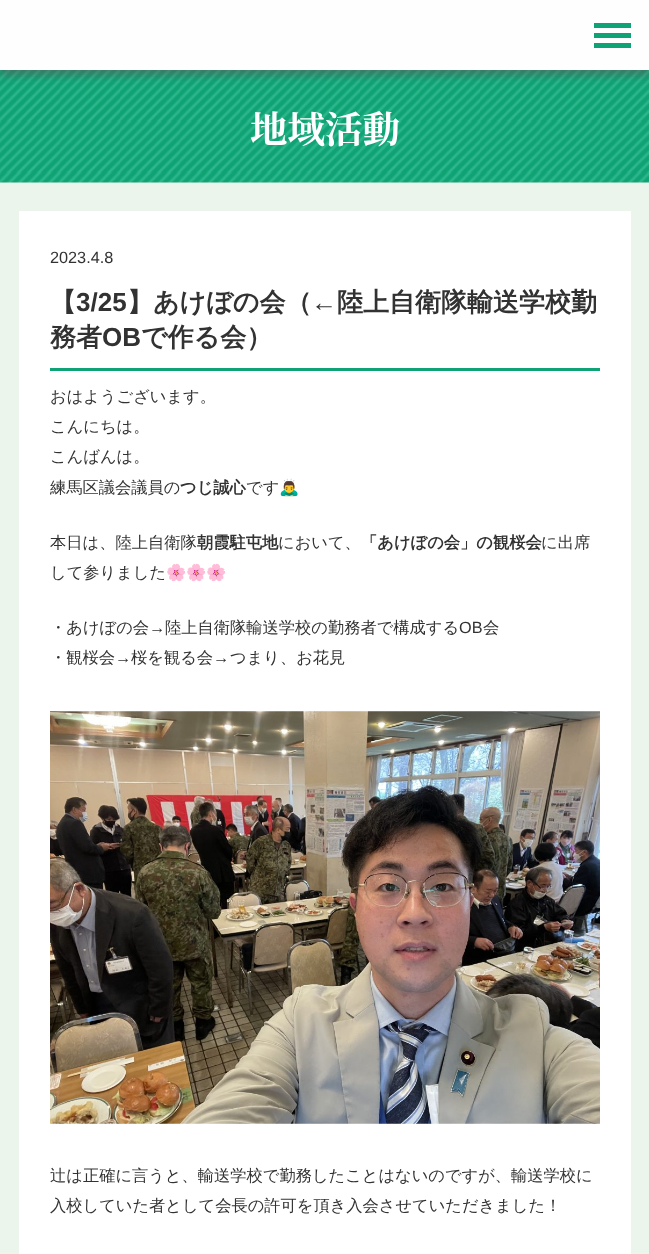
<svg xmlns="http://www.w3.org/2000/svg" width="649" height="1254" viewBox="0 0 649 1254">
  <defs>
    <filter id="blur1" x="-50%" y="-200%" width="200%" height="500%"><feGaussianBlur stdDeviation="4.5"/></filter>
  </defs>
  <rect width="100%" height="100%" fill="#ebf5ec"/>
  <image x="0" y="70" width="649" height="113" href="img1.png"/>
  <rect x="0" y="5" width="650" height="70" fill="#585858" fill-opacity="0.59" filter="url(#blur1)"/>
  <rect x="0" y="0" width="649" height="70" fill="#fdfefd"/>
  <rect x="594" y="33" width="37" height="5" fill="#0fa275"/>
  <rect x="594" y="23" width="37" height="5" fill="#0fa275"/>
  <rect x="594" y="43" width="37" height="5" fill="#0fa275"/>
  <text x="250" y="143" font-family="Noto Serif JP" font-size="37.5" font-weight="bold" fill="#ffffff">地域活動</text>
  <rect x="19" y="211" width="612" height="1043" fill="#ffffff"/>
  <text x="50" y="263" font-family="Liberation Sans" font-size="16.25" fill="#323232">2023.4.8</text>
  <rect x="50" y="368" width="550" height="3" fill="#0fa275"/>
  <text x="50" y="311" font-family="WenQuanYi Zen Hei" font-size="26" font-weight="bold" fill="#323232">【</text>
  <text x="76" y="311" font-family="Liberation Sans" font-size="26" font-weight="bold" fill="#323232">3/25</text>
  <text x="127" y="311" font-family="WenQuanYi Zen Hei" font-size="26" font-weight="bold" fill="#323232">】あけぼの会（</text>
  <text x="311" y="311" font-family="Liberation Sans" font-size="26" font-weight="bold" fill="#323232">←</text>
  <text x="337" y="311" font-family="WenQuanYi Zen Hei" font-size="26" font-weight="bold" fill="#323232">陸上自衛隊輸送学校勤</text>
  <text x="50" y="346" font-family="WenQuanYi Zen Hei" font-size="26" font-weight="bold" fill="#323232">務者</text>
  <text x="102" y="346" font-family="Liberation Sans" font-size="26" font-weight="bold" fill="#323232">OB</text>
  <text x="141" y="346" font-family="WenQuanYi Zen Hei" font-size="26" font-weight="bold" fill="#323232">で作る会）</text>
  <text x="50" y="402" font-family="WenQuanYi Zen Hei" font-size="16.25" font-weight="500" fill="#323232">おはようございます。</text>
  <text x="50" y="432" font-family="WenQuanYi Zen Hei" font-size="16.25" font-weight="500" fill="#323232">こんにちは。</text>
  <text x="50" y="462" font-family="WenQuanYi Zen Hei" font-size="16.25" font-weight="500" fill="#323232">こんばんは。</text>
  <text x="50" y="493" font-family="WenQuanYi Zen Hei" font-size="16.25" font-weight="500" fill="#323232">練馬区議会議員の</text>
  <text x="180" y="493" font-family="WenQuanYi Zen Hei" font-size="16.25" font-weight="bold" fill="#323232">つじ誠心</text>
  <text x="246" y="493" font-family="WenQuanYi Zen Hei" font-size="16.25" font-weight="500" fill="#323232">です</text>
  <text x="279" y="493" font-family="Noto Color Emoji" font-size="16.25" fill="#323232">🙇‍♂️</text>
  <text x="50" y="548" font-family="WenQuanYi Zen Hei" font-size="16.25" font-weight="500" fill="#323232">本日は、陸上自衛隊</text>
  <text x="197" y="548" font-family="WenQuanYi Zen Hei" font-size="16.25" font-weight="bold" fill="#323232">朝霞駐屯地</text>
  <text x="278" y="548" font-family="WenQuanYi Zen Hei" font-size="16.25" font-weight="500" fill="#323232">において、</text>
  <text x="361" y="548" font-family="WenQuanYi Zen Hei" font-size="16.25" font-weight="bold" fill="#323232">「あけぼの会」の観桜会</text>
  <text x="541" y="548" font-family="WenQuanYi Zen Hei" font-size="16.25" font-weight="500" fill="#323232">に出席</text>
  <text x="50" y="578" font-family="WenQuanYi Zen Hei" font-size="16.25" font-weight="500" fill="#323232">して参りました</text>
  <text x="166" y="578" font-family="Noto Color Emoji" font-size="16.25" fill="#323232">🌸🌸🌸</text>
  <text x="50" y="633" font-family="WenQuanYi Zen Hei" font-size="16.25" font-weight="500" fill="#323232">・あけぼの会</text>
  <text x="149" y="633" font-family="Liberation Sans" font-size="16.25" fill="#323232">→</text>
  <text x="165" y="633" font-family="WenQuanYi Zen Hei" font-size="16.25" font-weight="500" fill="#323232">陸上自衛隊輸送学校の勤務者で構成する</text>
  <text x="459" y="633" font-family="Liberation Sans" font-size="16.25" fill="#323232">OB</text>
  <text x="483" y="633" font-family="WenQuanYi Zen Hei" font-size="16.25" font-weight="500" fill="#323232">会</text>
  <text x="50" y="663" font-family="WenQuanYi Zen Hei" font-size="16.25" font-weight="500" fill="#323232">・観桜会</text>
  <text x="115" y="663" font-family="Liberation Sans" font-size="16.25" fill="#323232">→</text>
  <text x="131" y="663" font-family="WenQuanYi Zen Hei" font-size="16.25" font-weight="500" fill="#323232">桜を観る会</text>
  <text x="213" y="663" font-family="Liberation Sans" font-size="16.25" fill="#323232">→</text>
  <text x="230" y="663" font-family="WenQuanYi Zen Hei" font-size="16.25" font-weight="500" fill="#323232">つまり、お花見</text>
  <image x="50" y="711" width="550" height="413" href="img2.png"/>
  <text x="50" y="1181" font-family="WenQuanYi Zen Hei" font-size="16.25" font-weight="500" fill="#323232">辻は正確に言うと、輸送学校で勤務したことはないのですが、輸送学校に</text>
  <text x="50" y="1211" font-family="WenQuanYi Zen Hei" font-size="16.25" font-weight="500" fill="#323232">入校していた者として会長の許可を頂き入会させていただきました！</text>
</svg>
